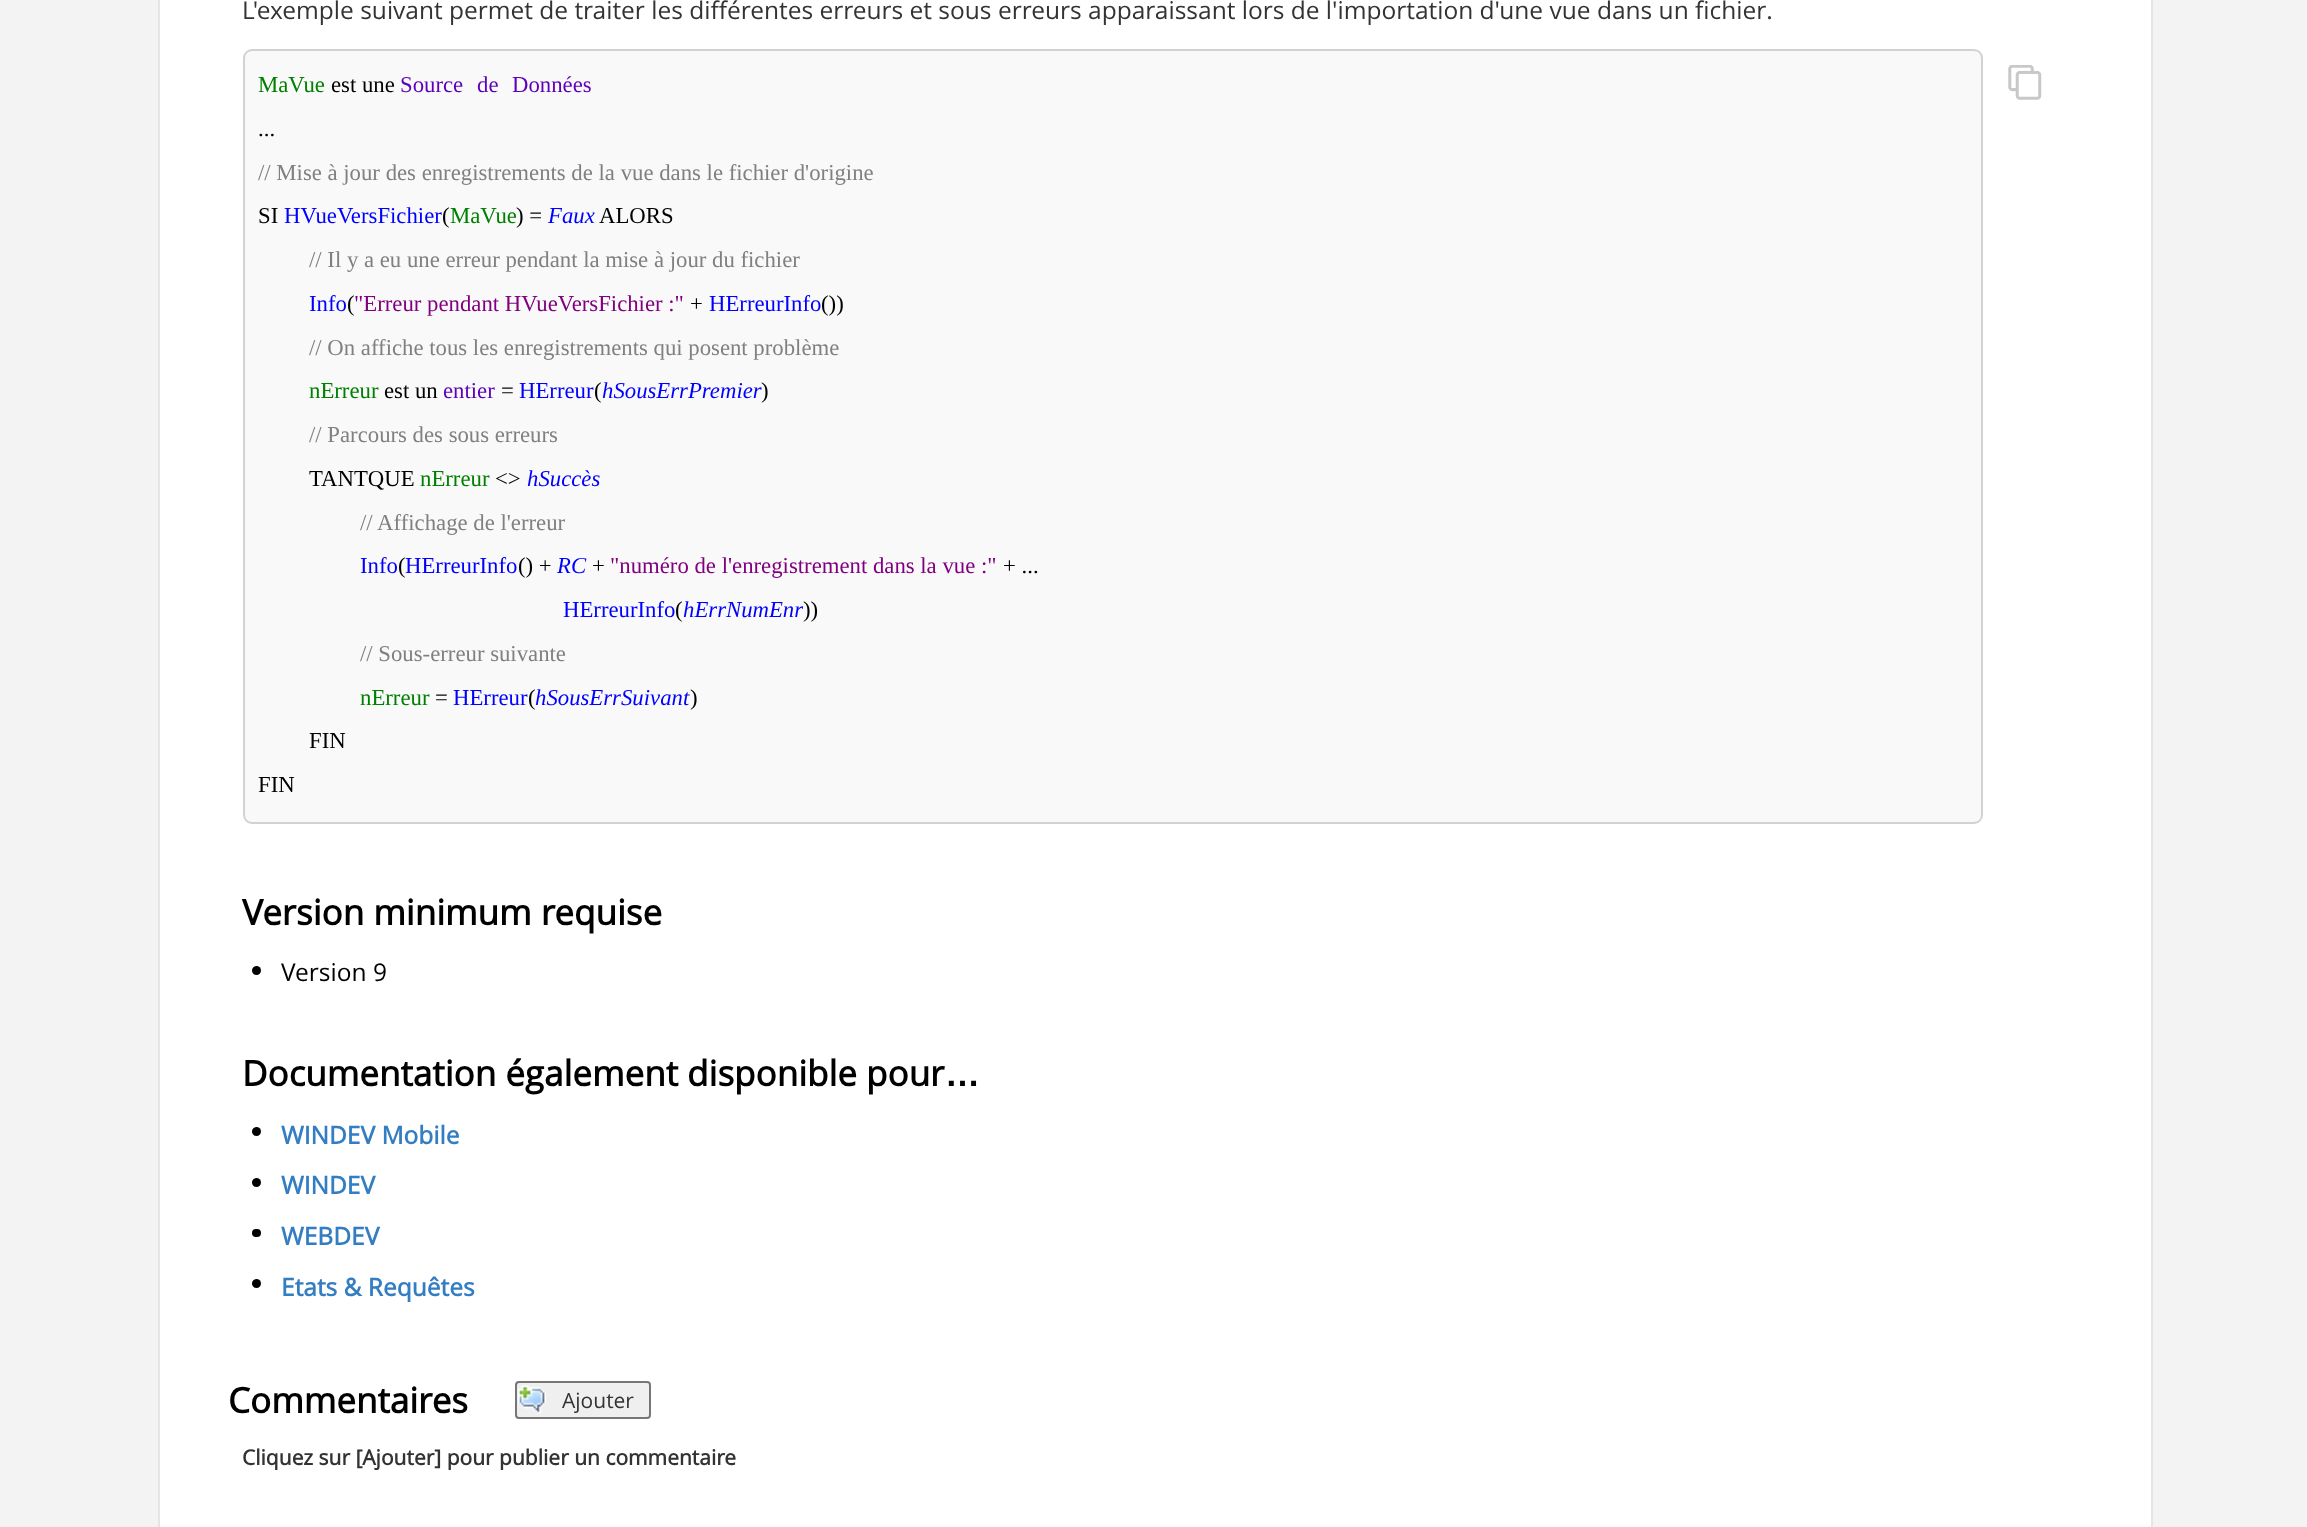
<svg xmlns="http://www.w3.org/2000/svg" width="2307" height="1527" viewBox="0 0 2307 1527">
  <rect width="100%" height="100%" fill="#f3f3f3"/>
  <rect x="160" y="0" width="1991" height="1527" fill="#ffffff"/>
  <rect x="2151" y="0" width="2" height="1527" fill="#e5e5e5"/>
  <rect x="158" y="0" width="2" height="1527" fill="#e5e5e5"/>
  <text x="242" y="19" font-family="Open Sans" font-size="24.5" fill="#333333">L'exemple suivant permet de traiter les différentes erreurs et sous erreurs apparaissant lors de l'importation d'une vue dans un fichier.</text>
  <rect x="244" y="50" width="1738" height="773" rx="8" fill="#f9f9f9" stroke="#d2d2d2" stroke-width="2"/>
  <text x="258" y="92" font-family="Liberation Serif" font-size="22.75" fill="#008000">MaVue</text>
  <text x="331" y="92" font-family="Liberation Serif" font-size="22.75" fill="#000000">est une</text>
  <text x="400" y="92" font-family="Liberation Serif" font-size="22.75" fill="#5d00ba">Source</text>
  <text x="477" y="92" font-family="Liberation Serif" font-size="22.75" fill="#5d00ba">de</text>
  <text x="512" y="92" font-family="Liberation Serif" font-size="22.75" fill="#5d00ba">Données</text>
  <text x="258" y="136" font-family="Liberation Serif" font-size="22.75" fill="#000000">...</text>
  <text x="258" y="180" font-family="Liberation Serif" font-size="22.75" fill="#808080">// Mise à jour des enregistrements de la vue dans le fichier d'origine</text>
  <text x="258" y="223" font-family="Liberation Serif" font-size="22.75" fill="#000000">SI</text>
  <text x="284" y="223" font-family="Liberation Serif" font-size="22.75" fill="#0000ff">HVueVersFichier</text>
  <text x="442" y="223" font-family="Liberation Serif" font-size="22.75" fill="#000000">(</text>
  <text x="450" y="223" font-family="Liberation Serif" font-size="22.75" fill="#008000">MaVue</text>
  <text x="516" y="223" font-family="Liberation Serif" font-size="22.75" fill="#000000">) =</text>
  <text x="548" y="223" font-family="Liberation Serif" font-size="22.75" font-style="italic" fill="#0000ff">Faux</text>
  <text x="599" y="223" font-family="Liberation Serif" font-size="22.75" fill="#000000">ALORS</text>
  <text x="309" y="267" font-family="Liberation Serif" font-size="22.75" fill="#808080">// Il y a eu une erreur pendant la mise à jour du fichier</text>
  <text x="309" y="311" font-family="Liberation Serif" font-size="22.75" fill="#0000ff">Info</text>
  <text x="347" y="311" font-family="Liberation Serif" font-size="22.75" fill="#000000">(</text>
  <text x="354" y="311" font-family="Liberation Serif" font-size="22.75" fill="#800080">"Erreur pendant HVueVersFichier :"</text>
  <text x="690" y="311" font-family="Liberation Serif" font-size="22.75" fill="#000000">+</text>
  <text x="709" y="311" font-family="Liberation Serif" font-size="22.75" fill="#0000ff">HErreurInfo</text>
  <text x="821" y="311" font-family="Liberation Serif" font-size="22.75" fill="#000000">())</text>
  <text x="309" y="355" font-family="Liberation Serif" font-size="22.75" fill="#808080">// On affiche tous les enregistrements qui posent problème</text>
  <text x="309" y="398" font-family="Liberation Serif" font-size="22.75" fill="#008000">nErreur</text>
  <text x="384" y="398" font-family="Liberation Serif" font-size="22.75" fill="#000000">est un</text>
  <text x="443" y="398" font-family="Liberation Serif" font-size="22.75" fill="#5d00ba">entier</text>
  <text x="501" y="398" font-family="Liberation Serif" font-size="22.75" fill="#000000">=</text>
  <text x="519" y="398" font-family="Liberation Serif" font-size="22.75" fill="#0000ff">HErreur</text>
  <text x="594" y="398" font-family="Liberation Serif" font-size="22.75" fill="#000000">(</text>
  <text x="602" y="398" font-family="Liberation Serif" font-size="22.75" font-style="italic" fill="#0000ff">hSousErrPremier</text>
  <text x="761" y="398" font-family="Liberation Serif" font-size="22.75" fill="#000000">)</text>
  <text x="309" y="442" font-family="Liberation Serif" font-size="22.75" fill="#808080">// Parcours des sous erreurs</text>
  <text x="309" y="486" font-family="Liberation Serif" font-size="22.75" fill="#000000">TANTQUE</text>
  <text x="420" y="486" font-family="Liberation Serif" font-size="22.75" fill="#008000">nErreur</text>
  <text x="495" y="486" font-family="Liberation Serif" font-size="22.75" fill="#000000">&lt;&gt;</text>
  <text x="527" y="486" font-family="Liberation Serif" font-size="22.75" font-style="italic" fill="#0000ff">hSuccès</text>
  <text x="360" y="530" font-family="Liberation Serif" font-size="22.75" fill="#808080">// Affichage de l'erreur</text>
  <text x="360" y="573" font-family="Liberation Serif" font-size="22.75" fill="#0000ff">Info</text>
  <text x="398" y="573" font-family="Liberation Serif" font-size="22.75" fill="#000000">(</text>
  <text x="405" y="573" font-family="Liberation Serif" font-size="22.75" fill="#0000ff">HErreurInfo</text>
  <text x="518" y="573" font-family="Liberation Serif" font-size="22.75" fill="#000000">() +</text>
  <text x="557" y="573" font-family="Liberation Serif" font-size="22.75" font-style="italic" fill="#0000ff">RC</text>
  <text x="592" y="573" font-family="Liberation Serif" font-size="22.75" fill="#000000">+</text>
  <text x="610" y="573" font-family="Liberation Serif" font-size="22.75" fill="#800080">"numéro de l'enregistrement dans la vue :"</text>
  <text x="1003" y="573" font-family="Liberation Serif" font-size="22.75" fill="#000000">+ ...</text>
  <text x="563" y="617" font-family="Liberation Serif" font-size="22.75" fill="#0000ff">HErreurInfo</text>
  <text x="675" y="617" font-family="Liberation Serif" font-size="22.75" fill="#000000">(</text>
  <text x="683" y="617" font-family="Liberation Serif" font-size="22.75" font-style="italic" fill="#0000ff">hErrNumEnr</text>
  <text x="803" y="617" font-family="Liberation Serif" font-size="22.75" fill="#000000">))</text>
  <text x="360" y="661" font-family="Liberation Serif" font-size="22.75" fill="#808080">// Sous-erreur suivante</text>
  <text x="360" y="705" font-family="Liberation Serif" font-size="22.75" fill="#008000">nErreur</text>
  <text x="435" y="705" font-family="Liberation Serif" font-size="22.75" fill="#000000">=</text>
  <text x="453" y="705" font-family="Liberation Serif" font-size="22.75" fill="#0000ff">HErreur</text>
  <text x="528" y="705" font-family="Liberation Serif" font-size="22.75" fill="#000000">(</text>
  <text x="535" y="705" font-family="Liberation Serif" font-size="22.75" font-style="italic" fill="#0000ff">hSousErrSuivant</text>
  <text x="690" y="705" font-family="Liberation Serif" font-size="22.75" fill="#000000">)</text>
  <text x="309" y="748" font-family="Liberation Serif" font-size="22.75" fill="#000000">FIN</text>
  <text x="258" y="792" font-family="Liberation Serif" font-size="22.75" fill="#000000">FIN</text>
  <image x="2008" y="65" width="34" height="35" href="img1.png"/>
  <text x="242" y="925" font-family="Open Sans" font-size="35" font-weight="bold" fill="#000000">Version minimum requise</text>
  <circle cx="256.5" cy="970.5" r="4.5" fill="#000000"/>
  <text x="281" y="981" font-family="Open Sans" font-size="24.5" fill="#000000">Version 9</text>
  <text x="242" y="1086" font-family="Open Sans" font-size="35" font-weight="bold" fill="#000000">Documentation également disponible pour</text>
  <text x="945" y="1086" font-family="Liberation Sans" font-size="35" font-weight="bold" fill="#000000">…</text>
  <circle cx="256.5" cy="1131.5" r="4.5" fill="#000000"/>
  <text x="281" y="1144" font-family="Open Sans" font-size="24.5" font-weight="bold" fill="#337dc2">WINDEV Mobile</text>
  <circle cx="256.5" cy="1182.5" r="4.5" fill="#000000"/>
  <text x="281" y="1194" font-family="Open Sans" font-size="24.5" font-weight="bold" fill="#337dc2">WINDEV</text>
  <rect x="252" y="1229" width="9" height="8" rx="4" fill="#000000"/>
  <text x="281" y="1245" font-family="Open Sans" font-size="24.5" font-weight="bold" fill="#337dc2">WEBDEV</text>
  <circle cx="256.5" cy="1283.5" r="4.5" fill="#000000"/>
  <text x="281" y="1296" font-family="Open Sans" font-size="24.5" font-weight="bold" fill="#337dc2">Etats &amp; Requêtes</text>
  <text x="228" y="1413" font-family="Open Sans" font-size="35" font-weight="bold" fill="#000000">Commentaires</text>
  <rect x="516" y="1382" width="134" height="36" rx="3" fill="#efefef" stroke="#767676" stroke-width="2"/>
  <image x="518" y="1385" width="28" height="29" href="img2.png"/>
  <text x="562" y="1408" font-family="Open Sans" font-size="21" fill="#333333">Ajouter</text>
  <text x="242" y="1465" font-family="Open Sans" font-size="21" font-weight="bold" fill="#333333">Cliquez sur [Ajouter] pour publier un commentaire</text>
</svg>
